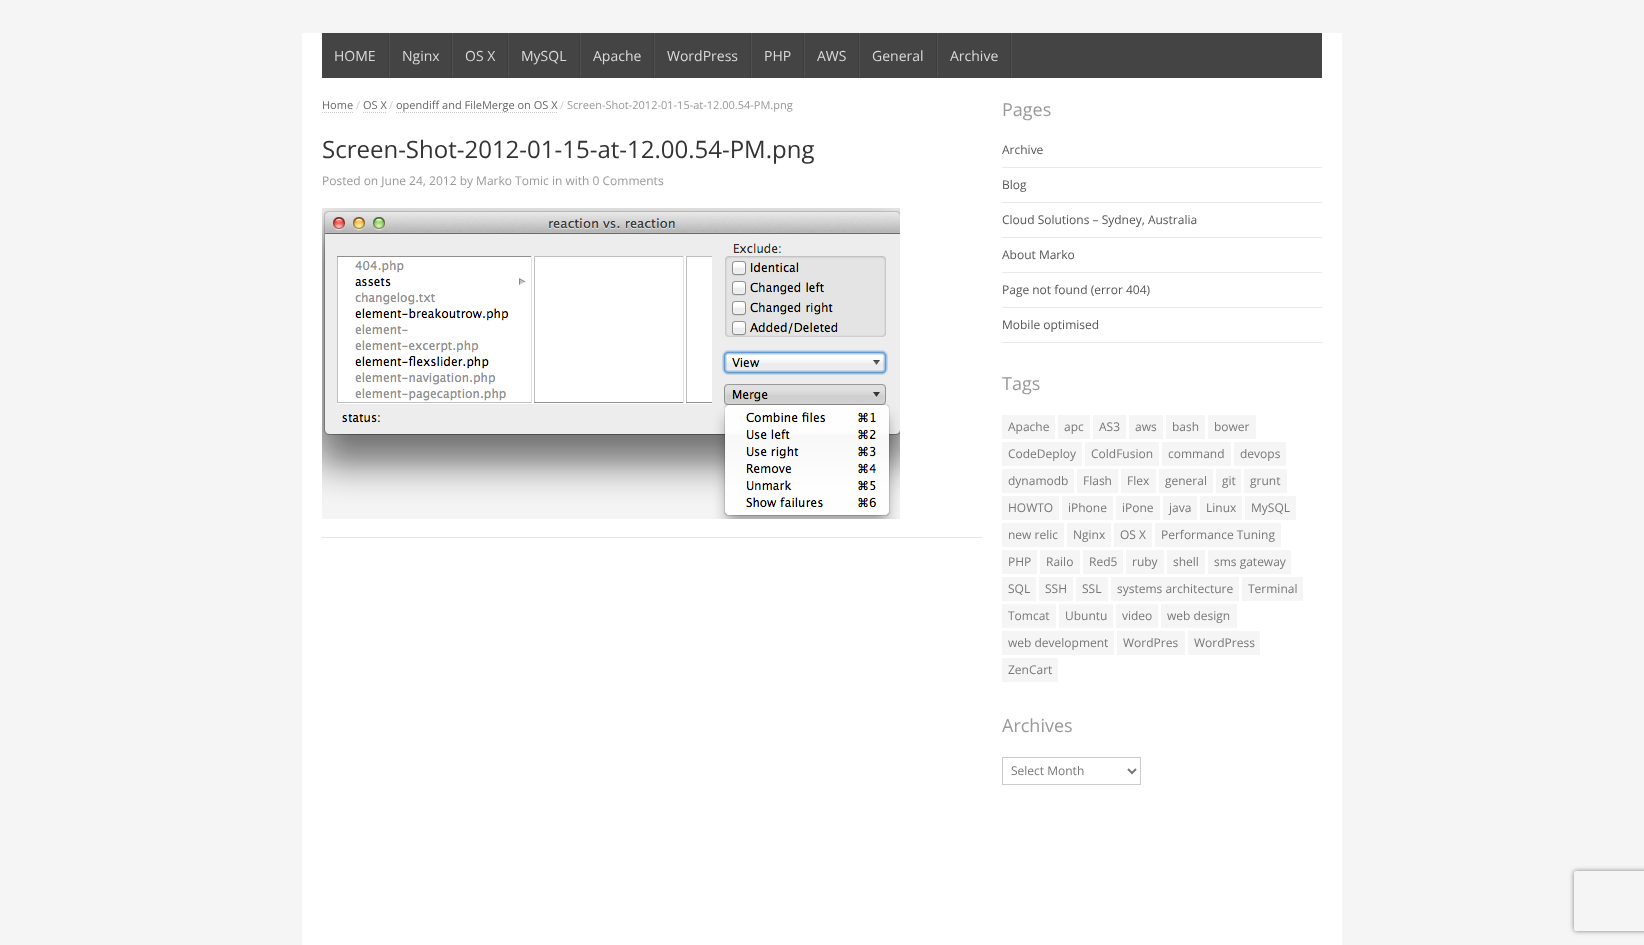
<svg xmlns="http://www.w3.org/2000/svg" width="1644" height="945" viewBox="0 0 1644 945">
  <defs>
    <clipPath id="clip1"><path d="M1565 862H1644V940H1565ZM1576 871H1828C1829 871 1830 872 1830 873V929C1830 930 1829 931 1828 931H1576C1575 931 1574 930 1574 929V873C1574 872 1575 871 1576 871Z" clip-rule="evenodd"/></clipPath>
    <filter id="blur1" x="-50%" y="-200%" width="200%" height="500%"><feGaussianBlur stdDeviation="2.5"/></filter>
  </defs>
  <rect width="100%" height="100%" fill="#f5f5f5"/>
  <rect x="302" y="33" width="1040" height="912" fill="#ffffff"/>
  <rect x="322" y="33" width="1000" height="45" fill="#444444"/>
  <rect x="389" y="33" width="1" height="45" fill="#515151"/>
  <rect x="388" y="33" width="1" height="45" fill="#3d3d3d"/>
  <text x="334" y="61" font-family="Open Sans" font-size="14" fill="#dadada">HOME</text>
  <rect x="452" y="33" width="1" height="45" fill="#515151"/>
  <rect x="451" y="33" width="1" height="45" fill="#3d3d3d"/>
  <text x="402" y="61" font-family="Open Sans" font-size="14" fill="#dadada">Nginx</text>
  <rect x="508" y="33" width="1" height="45" fill="#515151"/>
  <rect x="507" y="33" width="1" height="45" fill="#3d3d3d"/>
  <text x="465" y="61" font-family="Open Sans" font-size="14" fill="#dadada">OS X</text>
  <rect x="580" y="33" width="1" height="45" fill="#515151"/>
  <rect x="579" y="33" width="1" height="45" fill="#3d3d3d"/>
  <text x="521" y="61" font-family="Open Sans" font-size="14" fill="#dadada">MySQL</text>
  <rect x="654" y="33" width="1" height="45" fill="#515151"/>
  <rect x="653" y="33" width="1" height="45" fill="#3d3d3d"/>
  <text x="593" y="61" font-family="Open Sans" font-size="14" fill="#dadada">Apache</text>
  <rect x="751" y="33" width="1" height="45" fill="#515151"/>
  <rect x="750" y="33" width="1" height="45" fill="#3d3d3d"/>
  <text x="667" y="61" font-family="Open Sans" font-size="14" fill="#dadada">WordPress</text>
  <rect x="804" y="33" width="1" height="45" fill="#515151"/>
  <rect x="803" y="33" width="1" height="45" fill="#3d3d3d"/>
  <text x="764" y="61" font-family="Open Sans" font-size="14" fill="#dadada">PHP</text>
  <rect x="859" y="33" width="1" height="45" fill="#515151"/>
  <rect x="858" y="33" width="1" height="45" fill="#3d3d3d"/>
  <text x="817" y="61" font-family="Open Sans" font-size="14" fill="#dadada">AWS</text>
  <rect x="937" y="33" width="1" height="45" fill="#515151"/>
  <rect x="936" y="33" width="1" height="45" fill="#3d3d3d"/>
  <text x="872" y="61" font-family="Open Sans" font-size="14" fill="#dadada">General</text>
  <rect x="1011" y="33" width="1" height="45" fill="#515151"/>
  <rect x="1010" y="33" width="1" height="45" fill="#3d3d3d"/>
  <text x="950" y="61" font-family="Open Sans" font-size="14" fill="#dadada">Archive</text>
  <text x="322" y="109" font-family="Open Sans" font-size="11" fill="#666666">Home</text>
  <path d="M322 112.5H353" fill="none" stroke="#cccccc" stroke-dasharray="1 1"/>
  <text x="356" y="109" font-family="Open Sans" font-size="11" fill="#cccccc">/</text>
  <text x="363" y="109" font-family="Open Sans" font-size="11" fill="#666666">OS X</text>
  <path d="M363 112.5H387" fill="none" stroke="#cccccc" stroke-dasharray="1 1"/>
  <text x="389" y="109" font-family="Open Sans" font-size="11" fill="#cccccc">/</text>
  <text x="396" y="109" font-family="Open Sans" font-size="11" fill="#666666">opendiff and FileMerge on OS X</text>
  <path d="M396 112.5H558" fill="none" stroke="#cccccc" stroke-dasharray="1 1"/>
  <text x="560" y="109" font-family="Open Sans" font-size="11" fill="#cccccc">/</text>
  <text x="567" y="109" font-family="Open Sans" font-size="11" fill="#999999">Screen-Shot-2012-01-15-at-12.00.54-PM.png</text>
  <rect x="322" y="537" width="660" height="1" fill="#e5e5e5"/>
  <text x="322" y="158" font-family="Open Sans" font-size="24" fill="#333333">Screen-Shot-2012-01-15-at-12.00.54-PM.png</text>
  <text x="322" y="185" font-family="Open Sans" font-size="12" fill="#999999">Posted on June 24, 2012 by Marko Tomic in with 0 Comments</text>
  <image x="322" y="208" width="578" height="311" href="img1.png"/>
  <text x="1002" y="116" font-family="Open Sans" font-size="18" fill="#999999">Pages</text>
  <rect x="1002" y="167" width="320" height="1" fill="#e9e9e9"/>
  <text x="1002" y="154" font-family="Open Sans" font-size="12" fill="#555555">Archive</text>
  <rect x="1002" y="202" width="320" height="1" fill="#e9e9e9"/>
  <text x="1002" y="189" font-family="Open Sans" font-size="12" fill="#555555">Blog</text>
  <rect x="1002" y="237" width="320" height="1" fill="#e9e9e9"/>
  <text x="1002" y="224" font-family="Open Sans" font-size="12" fill="#555555">Cloud Solutions – Sydney, Australia</text>
  <rect x="1002" y="272" width="320" height="1" fill="#e9e9e9"/>
  <text x="1002" y="259" font-family="Open Sans" font-size="12" fill="#555555">About Marko</text>
  <rect x="1002" y="307" width="320" height="1" fill="#e9e9e9"/>
  <text x="1002" y="294" font-family="Open Sans" font-size="12" fill="#555555">Page not found (error 404)</text>
  <rect x="1002" y="342" width="320" height="1" fill="#e9e9e9"/>
  <text x="1002" y="329" font-family="Open Sans" font-size="12" fill="#555555">Mobile optimised</text>
  <text x="1002" y="390" font-family="Open Sans" font-size="18" fill="#999999">Tags</text>
  <rect x="1002" y="415" width="53" height="24" fill="#f5f5f5"/>
  <text x="1008" y="431" font-family="Open Sans" font-size="12" fill="#777777">Apache</text>
  <rect x="1058" y="415" width="32" height="24" fill="#f5f5f5"/>
  <text x="1064" y="431" font-family="Open Sans" font-size="12" fill="#777777">apc</text>
  <rect x="1093" y="415" width="33" height="24" fill="#f5f5f5"/>
  <text x="1099" y="431" font-family="Open Sans" font-size="12" fill="#777777">AS3</text>
  <rect x="1129" y="415" width="34" height="24" fill="#f5f5f5"/>
  <text x="1135" y="431" font-family="Open Sans" font-size="12" fill="#777777">aws</text>
  <rect x="1166" y="415" width="39" height="24" fill="#f5f5f5"/>
  <text x="1172" y="431" font-family="Open Sans" font-size="12" fill="#777777">bash</text>
  <rect x="1208" y="415" width="48" height="24" fill="#f5f5f5"/>
  <text x="1214" y="431" font-family="Open Sans" font-size="12" fill="#777777">bower</text>
  <rect x="1002" y="442" width="80" height="24" fill="#f5f5f5"/>
  <text x="1008" y="458" font-family="Open Sans" font-size="12" fill="#777777">CodeDeploy</text>
  <rect x="1085" y="442" width="74" height="24" fill="#f5f5f5"/>
  <text x="1091" y="458" font-family="Open Sans" font-size="12" fill="#777777">ColdFusion</text>
  <rect x="1162" y="442" width="69" height="24" fill="#f5f5f5"/>
  <text x="1168" y="458" font-family="Open Sans" font-size="12" fill="#777777">command</text>
  <rect x="1234" y="442" width="52" height="24" fill="#f5f5f5"/>
  <text x="1240" y="458" font-family="Open Sans" font-size="12" fill="#777777">devops</text>
  <rect x="1002" y="469" width="72" height="24" fill="#f5f5f5"/>
  <text x="1008" y="485" font-family="Open Sans" font-size="12" fill="#777777">dynamodb</text>
  <rect x="1077" y="469" width="41" height="24" fill="#f5f5f5"/>
  <text x="1083" y="485" font-family="Open Sans" font-size="12" fill="#777777">Flash</text>
  <rect x="1121" y="469" width="35" height="24" fill="#f5f5f5"/>
  <text x="1127" y="485" font-family="Open Sans" font-size="12" fill="#777777">Flex</text>
  <rect x="1159" y="469" width="54" height="24" fill="#f5f5f5"/>
  <text x="1165" y="485" font-family="Open Sans" font-size="12" fill="#777777">general</text>
  <rect x="1216" y="469" width="25" height="24" fill="#f5f5f5"/>
  <text x="1222" y="485" font-family="Open Sans" font-size="12" fill="#777777">git</text>
  <rect x="1244" y="469" width="43" height="24" fill="#f5f5f5"/>
  <text x="1250" y="485" font-family="Open Sans" font-size="12" fill="#777777">grunt</text>
  <rect x="1002" y="496" width="57" height="24" fill="#f5f5f5"/>
  <text x="1008" y="512" font-family="Open Sans" font-size="12" fill="#777777">HOWTO</text>
  <rect x="1062" y="496" width="51" height="24" fill="#f5f5f5"/>
  <text x="1068" y="512" font-family="Open Sans" font-size="12" fill="#777777">iPhone</text>
  <rect x="1116" y="496" width="44" height="24" fill="#f5f5f5"/>
  <text x="1122" y="512" font-family="Open Sans" font-size="12" fill="#777777">iPone</text>
  <rect x="1163" y="496" width="34" height="24" fill="#f5f5f5"/>
  <text x="1169" y="512" font-family="Open Sans" font-size="12" fill="#777777">java</text>
  <rect x="1200" y="496" width="42" height="24" fill="#f5f5f5"/>
  <text x="1206" y="512" font-family="Open Sans" font-size="12" fill="#777777">Linux</text>
  <rect x="1245" y="496" width="51" height="24" fill="#f5f5f5"/>
  <text x="1251" y="512" font-family="Open Sans" font-size="12" fill="#777777">MySQL</text>
  <rect x="1002" y="523" width="62" height="24" fill="#f5f5f5"/>
  <text x="1008" y="539" font-family="Open Sans" font-size="12" fill="#777777">new relic</text>
  <rect x="1067" y="523" width="44" height="24" fill="#f5f5f5"/>
  <text x="1073" y="539" font-family="Open Sans" font-size="12" fill="#777777">Nginx</text>
  <rect x="1114" y="523" width="38" height="24" fill="#f5f5f5"/>
  <text x="1120" y="539" font-family="Open Sans" font-size="12" fill="#777777">OS X</text>
  <rect x="1155" y="523" width="126" height="24" fill="#f5f5f5"/>
  <text x="1161" y="539" font-family="Open Sans" font-size="12" fill="#777777">Performance Tuning</text>
  <rect x="1002" y="550" width="35" height="24" fill="#f5f5f5"/>
  <text x="1008" y="566" font-family="Open Sans" font-size="12" fill="#777777">PHP</text>
  <rect x="1040" y="550" width="40" height="24" fill="#f5f5f5"/>
  <text x="1046" y="566" font-family="Open Sans" font-size="12" fill="#777777">Railo</text>
  <rect x="1083" y="550" width="40" height="24" fill="#f5f5f5"/>
  <text x="1089" y="566" font-family="Open Sans" font-size="12" fill="#777777">Red5</text>
  <rect x="1126" y="550" width="38" height="24" fill="#f5f5f5"/>
  <text x="1132" y="566" font-family="Open Sans" font-size="12" fill="#777777">ruby</text>
  <rect x="1167" y="550" width="38" height="24" fill="#f5f5f5"/>
  <text x="1173" y="566" font-family="Open Sans" font-size="12" fill="#777777">shell</text>
  <rect x="1208" y="550" width="83" height="24" fill="#f5f5f5"/>
  <text x="1214" y="566" font-family="Open Sans" font-size="12" fill="#777777">sms gateway</text>
  <rect x="1002" y="577" width="34" height="24" fill="#f5f5f5"/>
  <text x="1008" y="593" font-family="Open Sans" font-size="12" fill="#777777">SQL</text>
  <rect x="1039" y="577" width="34" height="24" fill="#f5f5f5"/>
  <text x="1045" y="593" font-family="Open Sans" font-size="12" fill="#777777">SSH</text>
  <rect x="1076" y="577" width="32" height="24" fill="#f5f5f5"/>
  <text x="1082" y="593" font-family="Open Sans" font-size="12" fill="#777777">SSL</text>
  <rect x="1111" y="577" width="128" height="24" fill="#f5f5f5"/>
  <text x="1117" y="593" font-family="Open Sans" font-size="12" fill="#777777">systems architecture</text>
  <rect x="1242" y="577" width="61" height="24" fill="#f5f5f5"/>
  <text x="1248" y="593" font-family="Open Sans" font-size="12" fill="#777777">Terminal</text>
  <rect x="1002" y="604" width="54" height="24" fill="#f5f5f5"/>
  <text x="1008" y="620" font-family="Open Sans" font-size="12" fill="#777777">Tomcat</text>
  <rect x="1059" y="604" width="54" height="24" fill="#f5f5f5"/>
  <text x="1065" y="620" font-family="Open Sans" font-size="12" fill="#777777">Ubuntu</text>
  <rect x="1116" y="604" width="42" height="24" fill="#f5f5f5"/>
  <text x="1122" y="620" font-family="Open Sans" font-size="12" fill="#777777">video</text>
  <rect x="1161" y="604" width="76" height="24" fill="#f5f5f5"/>
  <text x="1167" y="620" font-family="Open Sans" font-size="12" fill="#777777">web design</text>
  <rect x="1002" y="631" width="112" height="24" fill="#f5f5f5"/>
  <text x="1008" y="647" font-family="Open Sans" font-size="12" fill="#777777">web development</text>
  <rect x="1117" y="631" width="68" height="24" fill="#f5f5f5"/>
  <text x="1123" y="647" font-family="Open Sans" font-size="12" fill="#777777">WordPres</text>
  <rect x="1188" y="631" width="72" height="24" fill="#f5f5f5"/>
  <text x="1194" y="647" font-family="Open Sans" font-size="12" fill="#777777">WordPress</text>
  <rect x="1002" y="658" width="56" height="24" fill="#f5f5f5"/>
  <text x="1008" y="674" font-family="Open Sans" font-size="12" fill="#777777">ZenCart</text>
  <text x="1002" y="732" font-family="Open Sans" font-size="18" fill="#999999">Archives</text>
  <rect x="1002.5" y="757.5" width="138" height="27" fill="none" stroke="#cccccc"/>
  <path d="M1128 769L1132 773L1136 769" fill="none" stroke="#777777" stroke-width="2"/>
  <text x="1011" y="775" font-family="Open Sans" font-size="12" fill="#777777">Select Month</text>
  <g clip-path="url(#clip1)">
    <rect x="1574" y="871" width="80" height="60" rx="2" fill="#808080" filter="url(#blur1)"/>
  </g>
</svg>
